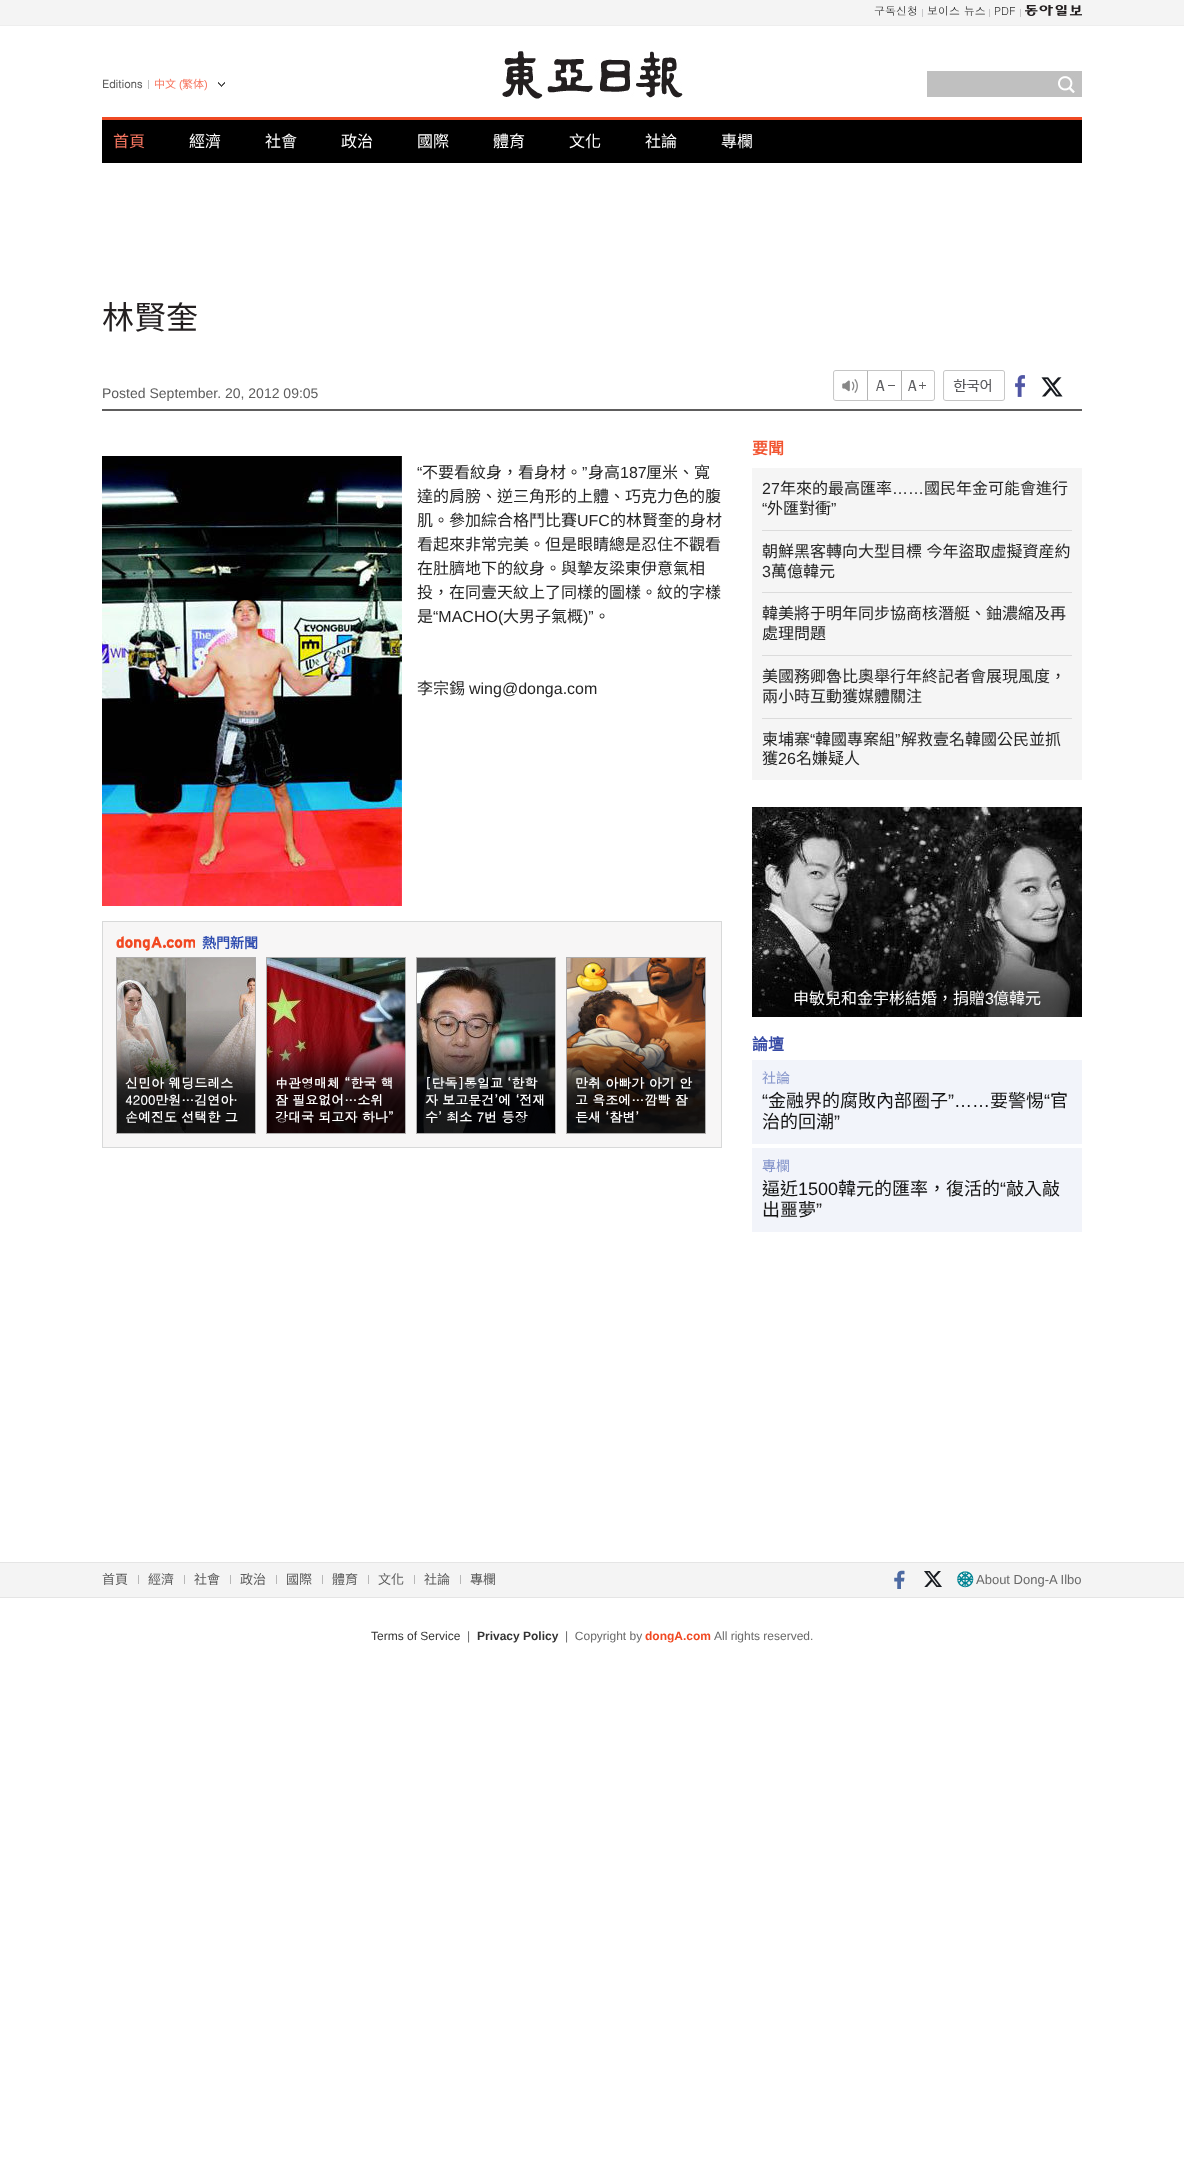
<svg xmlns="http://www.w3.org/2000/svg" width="1184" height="2158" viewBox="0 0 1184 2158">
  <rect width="100%" height="100%" fill="#ffffff"/>
  <rect x="0" y="0" width="1184" height="25" fill="#f4f4f4"/>
  <rect x="0" y="25" width="1184" height="1" fill="#eeeeee"/>
  <rect x="922" y="9" width="1" height="8" fill="#c7c7c9"/>
  <text x="874" y="15" font-family="Dotum" font-size="11" fill="#333333">구독신청</text>
  <rect x="989" y="9" width="1" height="8" fill="#c7c7c9"/>
  <text x="927" y="15" font-family="Dotum" font-size="11" fill="#333333">보이스 뉴스</text>
  <rect x="1020" y="9" width="1" height="8" fill="#c7c7c9"/>
  <text x="994" y="15" font-family="Dotum" font-size="11" fill="#333333">PDF</text>
  <image x="1025" y="5" width="57" height="11" href="img1.png"/>
  <rect x="148" y="80" width="1" height="9" fill="#c0c0c0"/>
  <text x="102" y="88" font-family="Dotum" font-size="11" font-weight="bold" fill="#5c5c5c">Editions</text>
  <image x="218" y="82" width="7" height="5" href="img2.png"/>
  <text x="154" y="88" font-family="Noto Sans CJK TC" font-size="11" fill="#f77660">中文</text>
  <text x="179" y="88" font-family="Liberation Sans" font-size="11" fill="#f77660">(</text>
  <text x="182" y="88" font-family="Noto Sans CJK TC" font-size="11" fill="#f77660">繁体</text>
  <text x="204" y="88" font-family="Liberation Sans" font-size="11" fill="#f77660">)</text>
  <image x="502" y="51" width="181" height="48" href="img3.png"/>
  <rect x="927" y="71" width="155" height="26" fill="#c0c0c0"/>
  <image x="1058" y="76" width="17" height="17" href="img4.png"/>
  <rect x="102" y="120" width="980" height="43" fill="#000000"/>
  <rect x="102" y="117" width="980" height="3" fill="#ef4a24"/>
  <text x="113" y="147" font-family="Noto Sans CJK TC" font-size="16" fill="#f77660">首頁</text>
  <text x="189" y="147" font-family="Noto Sans CJK TC" font-size="16" fill="#ffffff">經濟</text>
  <text x="265" y="147" font-family="Noto Sans CJK TC" font-size="16" fill="#ffffff">社會</text>
  <text x="341" y="147" font-family="Noto Sans CJK TC" font-size="16" fill="#ffffff">政治</text>
  <text x="417" y="147" font-family="Noto Sans CJK TC" font-size="16" fill="#ffffff">國際</text>
  <text x="493" y="147" font-family="Noto Sans CJK TC" font-size="16" fill="#ffffff">體育</text>
  <text x="569" y="147" font-family="Noto Sans CJK TC" font-size="16" fill="#ffffff">文化</text>
  <text x="645" y="147" font-family="Noto Sans CJK TC" font-size="16" fill="#ffffff">社論</text>
  <text x="721" y="147" font-family="Noto Sans CJK TC" font-size="16" fill="#ffffff">專欄</text>
  <rect x="102" y="409" width="980" height="2" fill="#5e5d5d"/>
  <text x="102" y="329" font-family="Noto Sans CJK TC" font-size="32" fill="#231f20">林賢奎</text>
  <text x="102" y="398" font-family="Liberation Sans" font-size="14" fill="#5c5c5c">Posted September. 20, 2012 09:05</text>
  <image x="833" y="370" width="34" height="31" href="img5.png"/>
  <image x="867" y="370" width="35" height="31" href="img6.png"/>
  <image x="902" y="370" width="33" height="31" href="img7.png"/>
  <image x="943" y="370" width="62" height="31" href="img8.png"/>
  <image x="1015" y="375" width="10" height="22" href="img9.png"/>
  <image x="1041" y="377" width="22" height="20" href="img10.png"/>
  <image x="102" y="456" width="300" height="450" href="img11.png"/>
  <text x="417" y="478" font-family="Liberation Sans" font-size="16" fill="#252525">“</text>
  <text x="422" y="478" font-family="Noto Sans CJK TC" font-size="16" fill="#252525">不要看紋身，看身材。</text>
  <text x="582" y="478" font-family="Liberation Sans" font-size="16" fill="#252525">”</text>
  <text x="588" y="478" font-family="Noto Sans CJK TC" font-size="16" fill="#252525">身高</text>
  <text x="620" y="478" font-family="Liberation Sans" font-size="16" fill="#252525">187</text>
  <text x="646" y="478" font-family="Noto Sans CJK TC" font-size="16" fill="#252525">厘米、寬</text>
  <text x="417" y="502" font-family="Noto Sans CJK TC" font-size="16" fill="#252525">達的肩膀、逆三角形的上體、巧克力色的腹</text>
  <text x="417" y="526" font-family="Noto Sans CJK TC" font-size="16" fill="#252525">肌。參加綜合格鬥比賽</text>
  <text x="577" y="526" font-family="Liberation Sans" font-size="16" fill="#252525">UFC</text>
  <text x="610" y="526" font-family="Noto Sans CJK TC" font-size="16" fill="#252525">的林賢奎的身材</text>
  <text x="417" y="550" font-family="Noto Sans CJK TC" font-size="16" fill="#252525">看起來非常完美。但是眼睛總是忍住不觀看</text>
  <text x="417" y="574" font-family="Noto Sans CJK TC" font-size="16" fill="#252525">在肚臍地下的紋身。與摯友梁東伊意氣相</text>
  <text x="417" y="598" font-family="Noto Sans CJK TC" font-size="16" fill="#252525">投，在同壹天紋上了同樣的圖樣。紋的字樣</text>
  <text x="417" y="622" font-family="Noto Sans CJK TC" font-size="16" fill="#252525">是</text>
  <text x="433" y="622" font-family="Liberation Sans" font-size="16" fill="#252525">“MACHO(</text>
  <text x="503" y="622" font-family="Noto Sans CJK TC" font-size="16" fill="#252525">大男子氣概</text>
  <text x="583" y="622" font-family="Liberation Sans" font-size="16" fill="#252525">)”</text>
  <text x="594" y="622" font-family="Noto Sans CJK TC" font-size="16" fill="#252525">。</text>
  <text x="417" y="694" font-family="Noto Sans CJK TC" font-size="16" fill="#252525">李宗錫</text>
  <text x="469" y="694" font-family="Liberation Sans" font-size="16" fill="#252525">wing@donga.com</text>
  <rect x="102.5" y="921.5" width="619" height="226" fill="#f7f6f6" stroke="#d8d9d9"/>
  <image x="116" y="936" width="79" height="15" href="img12.png"/>
  <text x="202" y="948" font-family="Noto Sans CJK TC" font-size="14" font-weight="bold" fill="#2e4caf">熱門新聞</text>
  <rect x="116.5" y="957.5" width="139" height="176" fill="none" stroke="#aeadad"/>
  <image x="117" y="958" width="138" height="175" href="img13.png"/>
  <image x="117" y="1011" width="138" height="122" href="img14.png"/>
  <text x="125" y="1088" font-family="Dotum" font-size="13" font-weight="bold" fill="#ffffff">신민아 웨딩드레스</text>
  <text x="125" y="1105" font-family="Dotum" font-size="13" font-weight="bold" fill="#ffffff">4200만원…김연아·</text>
  <text x="125" y="1122" font-family="Dotum" font-size="13" font-weight="bold" fill="#ffffff">손예진도 선택한 그</text>
  <rect x="266.5" y="957.5" width="139" height="176" fill="none" stroke="#aeadad"/>
  <image x="267" y="958" width="138" height="175" href="img15.png"/>
  <image x="267" y="1013" width="138" height="120" href="img16.png"/>
  <text x="275" y="1088" font-family="Dotum" font-size="13" font-weight="bold" fill="#ffffff">中관영매체 “한국 핵</text>
  <text x="275" y="1105" font-family="Dotum" font-size="13" font-weight="bold" fill="#ffffff">잠 필요없어…소위</text>
  <text x="275" y="1122" font-family="Dotum" font-size="13" font-weight="bold" fill="#ffffff">강대국 되고자 하나”</text>
  <rect x="416.5" y="957.5" width="139" height="176" fill="none" stroke="#aeadad"/>
  <image x="417" y="958" width="138" height="175" href="img17.png"/>
  <image x="417" y="1011" width="138" height="122" href="img18.png"/>
  <text x="425" y="1088" font-family="Dotum" font-size="13" font-weight="bold" fill="#ffffff">[단독]통일교 ‘한학</text>
  <text x="425" y="1105" font-family="Dotum" font-size="13" font-weight="bold" fill="#ffffff">자 보고문건’에 ‘전재</text>
  <text x="425" y="1122" font-family="Dotum" font-size="13" font-weight="bold" fill="#ffffff">수’ 최소 7번 등장</text>
  <rect x="566.5" y="957.5" width="139" height="176" fill="none" stroke="#aeadad"/>
  <image x="567" y="958" width="138" height="175" href="img19.png"/>
  <image x="567" y="1011" width="138" height="122" href="img20.png"/>
  <text x="575" y="1088" font-family="Dotum" font-size="13" font-weight="bold" fill="#ffffff">만취 아빠가 아기 안</text>
  <text x="575" y="1105" font-family="Dotum" font-size="13" font-weight="bold" fill="#ffffff">고 욕조에…깜빡 잠</text>
  <text x="575" y="1122" font-family="Dotum" font-size="13" font-weight="bold" fill="#ffffff">든새 ‘참변’</text>
  <text x="752" y="454" font-family="Noto Sans CJK TC" font-size="16" font-weight="bold" fill="#f25430">要聞</text>
  <rect x="752" y="468" width="330" height="312" fill="#f5f5f5"/>
  <text x="762" y="494" font-family="Liberation Sans" font-size="16" fill="#252525">27</text>
  <text x="780" y="494" font-family="Noto Sans CJK TC" font-size="16" fill="#252525">年來的最高匯率</text>
  <text x="892" y="494" font-family="Liberation Sans" font-size="16" fill="#252525">……</text>
  <text x="924" y="494" font-family="Noto Sans CJK TC" font-size="16" fill="#252525">國民年金可能會進行</text>
  <text x="762" y="514" font-family="Liberation Sans" font-size="16" fill="#252525">“</text>
  <text x="767" y="514" font-family="Noto Sans CJK TC" font-size="16" fill="#252525">外匯對衝</text>
  <text x="831" y="514" font-family="Liberation Sans" font-size="16" fill="#252525">”</text>
  <rect x="762" y="530" width="310" height="1" fill="#dbdbdb"/>
  <text x="762" y="557" word-spacing="1" font-family="Noto Sans CJK TC" font-size="16" fill="#252525">朝鮮黑客轉向大型目標 今年盜取虛擬資産約</text>
  <text x="762" y="577" font-family="Liberation Sans" font-size="16" fill="#252525">3</text>
  <text x="771" y="577" font-family="Noto Sans CJK TC" font-size="16" fill="#252525">萬億韓元</text>
  <rect x="762" y="592" width="310" height="1" fill="#dbdbdb"/>
  <text x="762" y="619" font-family="Noto Sans CJK TC" font-size="16" fill="#252525">韓美將于明年同步協商核潛艇、鈾濃縮及再</text>
  <text x="762" y="639" font-family="Noto Sans CJK TC" font-size="16" fill="#252525">處理問題</text>
  <rect x="762" y="655" width="310" height="1" fill="#dbdbdb"/>
  <text x="762" y="682" font-family="Noto Sans CJK TC" font-size="16" fill="#252525">美國務卿魯比奧舉行年終記者會展現風度，</text>
  <text x="762" y="702" font-family="Noto Sans CJK TC" font-size="16" fill="#252525">兩小時互動獲媒體關注</text>
  <rect x="762" y="718" width="310" height="1" fill="#dbdbdb"/>
  <text x="762" y="745" font-family="Noto Sans CJK TC" font-size="16" fill="#252525">柬埔寨</text>
  <text x="810" y="745" font-family="Liberation Sans" font-size="16" fill="#252525">“</text>
  <text x="815" y="745" font-family="Noto Sans CJK TC" font-size="16" fill="#252525">韓國專案組</text>
  <text x="895" y="745" font-family="Liberation Sans" font-size="16" fill="#252525">”</text>
  <text x="901" y="745" font-family="Noto Sans CJK TC" font-size="16" fill="#252525">解救壹名韓國公民並抓</text>
  <text x="762" y="764" font-family="Noto Sans CJK TC" font-size="16" fill="#252525">獲</text>
  <text x="778" y="764" font-family="Liberation Sans" font-size="16" fill="#252525">26</text>
  <text x="796" y="764" font-family="Noto Sans CJK TC" font-size="16" fill="#252525">名嫌疑人</text>
  <image x="752" y="807" width="330" height="210" href="img21.png"/>
  <image x="752" y="925" width="330" height="92" href="img22.png"/>
  <text x="793" y="1004" font-family="Noto Sans CJK TC" font-size="16" fill="#ffffff">申敏兒和金宇彬結婚，捐贈</text>
  <text x="985" y="1004" font-family="Liberation Sans" font-size="16" fill="#ffffff">3</text>
  <text x="993" y="1004" font-family="Noto Sans CJK TC" font-size="16" fill="#ffffff">億韓元</text>
  <text x="752" y="1050" font-family="Noto Sans CJK TC" font-size="16" font-weight="bold" fill="#364aa5">論壇</text>
  <rect x="752" y="1060" width="330" height="84" fill="#f2f4fa"/>
  <text x="762" y="1083" font-family="Noto Sans CJK TC" font-size="14" fill="#8393ca">社論</text>
  <text x="762" y="1107" font-family="Liberation Sans" font-size="18" fill="#131313">“</text>
  <text x="768" y="1107" font-family="Noto Sans CJK TC" font-size="18" fill="#131313">金融界的腐敗內部圈子</text>
  <text x="948" y="1107" font-family="Liberation Sans" font-size="18" fill="#131313">”……</text>
  <text x="990" y="1107" font-family="Noto Sans CJK TC" font-size="18" fill="#131313">要警惕</text>
  <text x="1044" y="1107" font-family="Liberation Sans" font-size="18" fill="#131313">“</text>
  <text x="1050" y="1107" font-family="Noto Sans CJK TC" font-size="18" fill="#131313">官</text>
  <text x="762" y="1128" font-family="Noto Sans CJK TC" font-size="18" fill="#131313">治的回潮</text>
  <text x="834" y="1128" font-family="Liberation Sans" font-size="18" fill="#131313">”</text>
  <rect x="752" y="1148" width="330" height="84" fill="#f2f4fa"/>
  <text x="762" y="1171" font-family="Noto Sans CJK TC" font-size="14" fill="#8393ca">專欄</text>
  <text x="762" y="1195" font-family="Noto Sans CJK TC" font-size="18" fill="#131313">逼近</text>
  <text x="798" y="1195" font-family="Liberation Sans" font-size="18" fill="#131313">1500</text>
  <text x="838" y="1195" font-family="Noto Sans CJK TC" font-size="18" fill="#131313">韓元的匯率，復活的</text>
  <text x="1000" y="1195" font-family="Liberation Sans" font-size="18" fill="#131313">“</text>
  <text x="1006" y="1195" font-family="Noto Sans CJK TC" font-size="18" fill="#131313">敲入敲</text>
  <text x="762" y="1216" font-family="Noto Sans CJK TC" font-size="18" fill="#131313">出噩夢</text>
  <text x="816" y="1216" font-family="Liberation Sans" font-size="18" fill="#131313">”</text>
  <rect x="0" y="1563" width="1184" height="34" fill="#f4f4f4"/>
  <rect x="0" y="1562" width="1184" height="1" fill="#e5e5e5"/>
  <rect x="0" y="1597" width="1184" height="1" fill="#e5e5e5"/>
  <text x="102" y="1584" font-family="Noto Sans CJK TC" font-size="13" fill="#5c5c5c">首頁</text>
  <rect x="138" y="1575" width="1" height="9" fill="#b7b7b7"/>
  <text x="148" y="1584" font-family="Noto Sans CJK TC" font-size="13" fill="#5c5c5c">經濟</text>
  <rect x="184" y="1575" width="1" height="9" fill="#b7b7b7"/>
  <text x="194" y="1584" font-family="Noto Sans CJK TC" font-size="13" fill="#5c5c5c">社會</text>
  <rect x="230" y="1575" width="1" height="9" fill="#b7b7b7"/>
  <text x="240" y="1584" font-family="Noto Sans CJK TC" font-size="13" fill="#5c5c5c">政治</text>
  <rect x="276" y="1575" width="1" height="9" fill="#b7b7b7"/>
  <text x="286" y="1584" font-family="Noto Sans CJK TC" font-size="13" fill="#5c5c5c">國際</text>
  <rect x="322" y="1575" width="1" height="9" fill="#b7b7b7"/>
  <text x="332" y="1584" font-family="Noto Sans CJK TC" font-size="13" fill="#5c5c5c">體育</text>
  <rect x="368" y="1575" width="1" height="9" fill="#b7b7b7"/>
  <text x="378" y="1584" font-family="Noto Sans CJK TC" font-size="13" fill="#5c5c5c">文化</text>
  <rect x="414" y="1575" width="1" height="9" fill="#b7b7b7"/>
  <text x="424" y="1584" font-family="Noto Sans CJK TC" font-size="13" fill="#5c5c5c">社論</text>
  <rect x="460" y="1575" width="1" height="9" fill="#b7b7b7"/>
  <text x="470" y="1584" font-family="Noto Sans CJK TC" font-size="13" fill="#5c5c5c">專欄</text>
  <image x="894" y="1570" width="11" height="19" href="img23.png"/>
  <image x="924" y="1571" width="18" height="16" href="img24.png"/>
  <image x="957" y="1571" width="17" height="17" href="img25.png"/>
  <text x="976" y="1584" font-family="Liberation Sans" font-size="13" fill="#696969">About Dong-A Ilbo</text>
  <text x="371" y="1640" font-family="Liberation Sans" font-size="12" fill="#333333">Terms of Service</text>
  <text x="467" y="1640" font-family="Liberation Sans" font-size="12" fill="#696969">|</text>
  <text x="477" y="1640" font-family="Liberation Sans" font-size="12" font-weight="bold" fill="#333333">Privacy Policy</text>
  <text x="565" y="1640" font-family="Liberation Sans" font-size="12" fill="#696969" xml:space="preserve">|  Copyright by</text>
  <text x="645" y="1640" font-family="Liberation Sans" font-size="12" font-weight="bold" fill="#f14922">dongA.com</text>
  <text x="714" y="1640" font-family="Liberation Sans" font-size="12" fill="#696969">All rights reserved.</text>
</svg>
